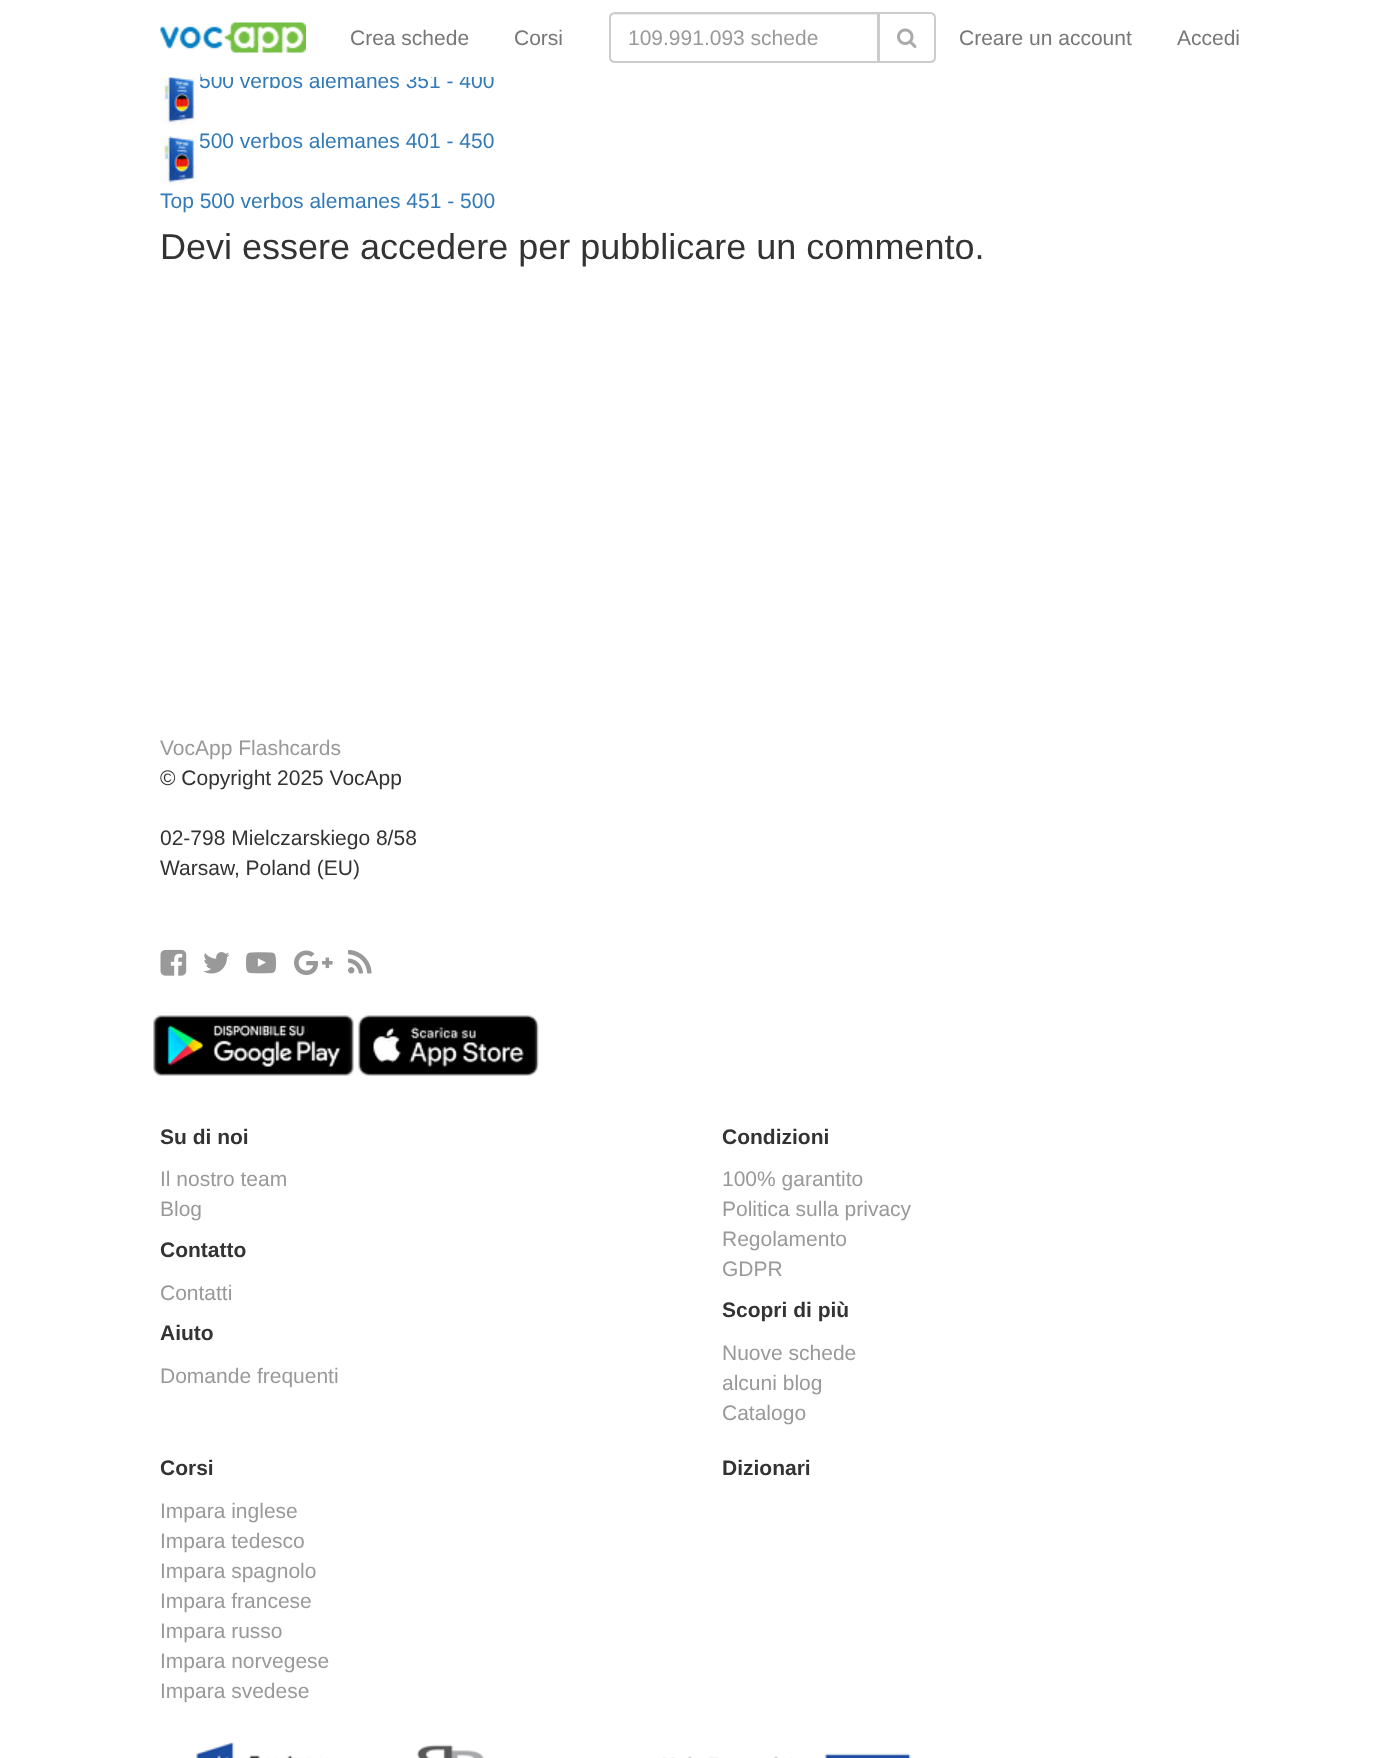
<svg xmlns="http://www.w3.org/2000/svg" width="1399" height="1758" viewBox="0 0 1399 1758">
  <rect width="100%" height="100%" fill="#ffffff"/>
  <text x="199" y="88" font-family="Liberation Sans" font-size="21" fill="#337ab7">500 verbos alemanes 351 - 400</text>
  <rect x="201" y="72" width="292" height="3" fill="#ffffff"/>
  <rect x="201" y="75" width="293" height="2" fill="#ffffff"/>
  <image x="160" y="22" width="146" height="31" href="img1.png"/>
  <text x="350" y="45" font-family="Liberation Sans" font-size="21" fill="#777777">Crea schede</text>
  <text x="514" y="45" font-family="Liberation Sans" font-size="21" fill="#777777">Corsi</text>
  <path d="M615 15H878V14H615L613 15L612 16Z" fill="#ececec"/>
  <path d="M615 13H878V62H615C612 62 610 60 610 57V18C610 15 612 13 615 13Z" fill="none" stroke="#cccccc" stroke-width="2"/>
  <text x="628" y="45" font-family="Liberation Sans" font-size="21" fill="#999999">109.991.093 schede</text>
  <path d="M879 13H930C933 13 935 15 935 18V57C935 60 933 62 930 62H879Z" fill="#ffffff" stroke="#cccccc" stroke-width="2"/>
  <image x="897" y="28" width="20" height="20" href="img2.png"/>
  <text x="959" y="45" font-family="Liberation Sans" font-size="21" fill="#777777">Creare un account</text>
  <text x="1177" y="45" font-family="Liberation Sans" font-size="21" fill="#777777">Accedi</text>
  <image x="160" y="77" width="37" height="48" href="img3.png"/>
  <text x="199" y="148" font-family="Liberation Sans" font-size="21" fill="#337ab7">500 verbos alemanes 401 - 450</text>
  <image x="160" y="136" width="37" height="49" href="img4.png"/>
  <text x="160" y="208" font-family="Liberation Sans" font-size="21" fill="#337ab7">Top 500 verbos alemanes 451 - 500</text>
  <text x="160" y="259" font-family="Liberation Sans" font-size="36" fill="#333333">Devi essere accedere per pubblicare un commento.</text>
  <text x="160" y="755" font-family="Liberation Sans" font-size="21" fill="#999999">VocApp Flashcards</text>
  <text x="160" y="785" font-family="Liberation Sans" font-size="21" fill="#333333">© Copyright 2025 VocApp</text>
  <text x="160" y="845" font-family="Liberation Sans" font-size="21" fill="#333333">02-798 Mielczarskiego 8/58</text>
  <text x="160" y="875" font-family="Liberation Sans" font-size="21" fill="#333333">Warsaw, Poland (EU)</text>
  <image x="160" y="949" width="27" height="27" href="img5.png"/>
  <image x="203" y="952" width="27" height="22" href="img6.png"/>
  <image x="246" y="952" width="30" height="22" href="img7.png"/>
  <image x="294" y="950" width="39" height="26" href="img8.png"/>
  <image x="348" y="950" width="24" height="24" href="img9.png"/>
  <image x="153" y="1015" width="201" height="61" href="img10.png"/>
  <image x="358" y="1015" width="181" height="61" href="img11.png"/>
  <text x="160" y="1144" font-family="Liberation Sans" font-size="21" font-weight="bold" fill="#333333">Su di noi</text>
  <text x="160" y="1186" font-family="Liberation Sans" font-size="21" fill="#999999">Il nostro team</text>
  <text x="160" y="1216" font-family="Liberation Sans" font-size="21" fill="#999999">Blog</text>
  <text x="160" y="1257" font-family="Liberation Sans" font-size="21" font-weight="bold" fill="#333333">Contatto</text>
  <text x="160" y="1300" font-family="Liberation Sans" font-size="21" fill="#999999">Contatti</text>
  <text x="160" y="1340" font-family="Liberation Sans" font-size="21" font-weight="bold" fill="#333333">Aiuto</text>
  <text x="160" y="1383" font-family="Liberation Sans" font-size="21" fill="#999999">Domande frequenti</text>
  <text x="722" y="1144" font-family="Liberation Sans" font-size="21" font-weight="bold" fill="#333333">Condizioni</text>
  <text x="722" y="1186" font-family="Liberation Sans" font-size="21" fill="#999999">100% garantito</text>
  <text x="722" y="1216" font-family="Liberation Sans" font-size="21" fill="#999999">Politica sulla privacy</text>
  <text x="722" y="1246" font-family="Liberation Sans" font-size="21" fill="#999999">Regolamento</text>
  <text x="722" y="1276" font-family="Liberation Sans" font-size="21" fill="#999999">GDPR</text>
  <text x="722" y="1317" font-family="Liberation Sans" font-size="21" font-weight="bold" fill="#333333">Scopri di più</text>
  <text x="722" y="1360" font-family="Liberation Sans" font-size="21" fill="#999999">Nuove schede</text>
  <text x="722" y="1390" font-family="Liberation Sans" font-size="21" fill="#999999">alcuni blog</text>
  <text x="722" y="1420" font-family="Liberation Sans" font-size="21" fill="#999999">Catalogo</text>
  <text x="160" y="1475" font-family="Liberation Sans" font-size="21" font-weight="bold" fill="#333333">Corsi</text>
  <text x="160" y="1518" font-family="Liberation Sans" font-size="21" fill="#999999">Impara inglese</text>
  <text x="160" y="1548" font-family="Liberation Sans" font-size="21" fill="#999999">Impara tedesco</text>
  <text x="160" y="1578" font-family="Liberation Sans" font-size="21" fill="#999999">Impara spagnolo</text>
  <text x="160" y="1608" font-family="Liberation Sans" font-size="21" fill="#999999">Impara francese</text>
  <text x="160" y="1638" font-family="Liberation Sans" font-size="21" fill="#999999">Impara russo</text>
  <text x="160" y="1668" font-family="Liberation Sans" font-size="21" fill="#999999">Impara norvegese</text>
  <text x="160" y="1698" font-family="Liberation Sans" font-size="21" fill="#999999">Impara svedese</text>
  <text x="722" y="1475" font-family="Liberation Sans" font-size="21" font-weight="bold" fill="#333333">Dizionari</text>
  <image x="196" y="1742" width="715" height="16" href="img12.png"/>
</svg>
